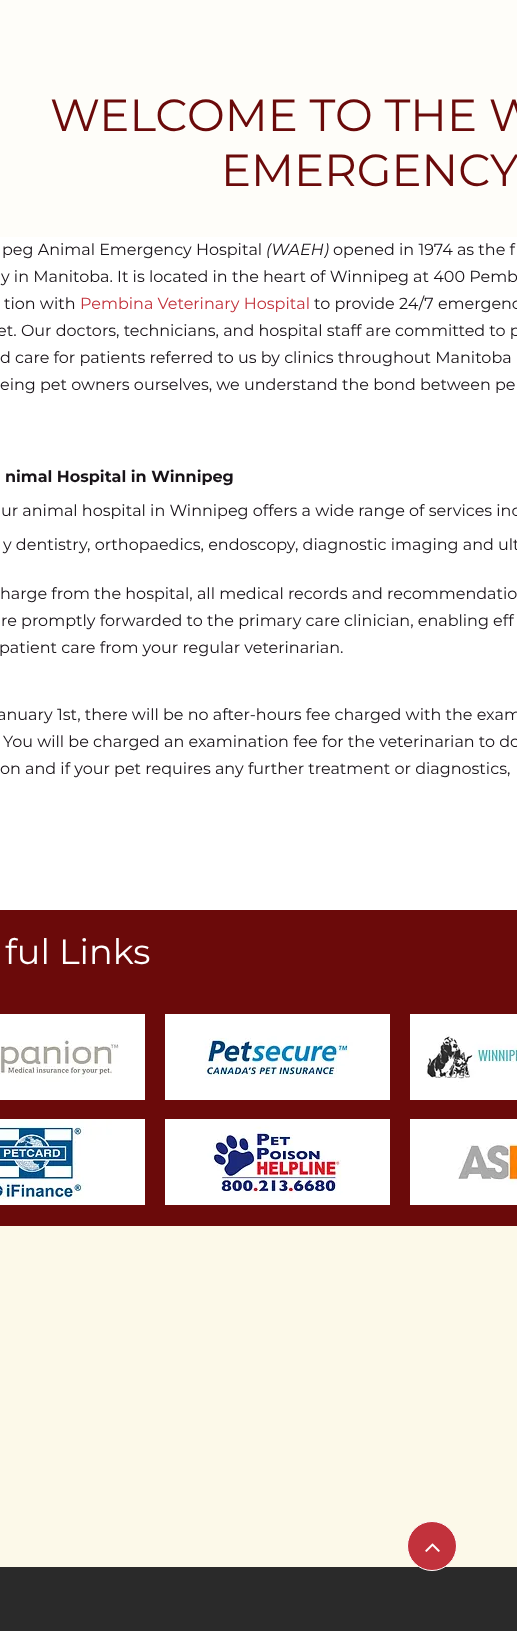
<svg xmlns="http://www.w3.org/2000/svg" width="517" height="1631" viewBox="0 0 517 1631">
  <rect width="100%" height="100%" fill="#fcf9e9"/>
  <rect x="0" y="0" width="517" height="237" fill="#fefdf9"/>
  <text x="50" y="131" font-family="Montserrat" font-size="45" fill="#6b0a0a">WELCOME TO THE W</text>
  <text x="221" y="186" font-family="Montserrat" font-size="45" fill="#6b0a0a">EMERGENCY</text>
  <rect x="0" y="237" width="517" height="673" fill="#ffffff"/>
  <text x="2" y="255" font-family="Montserrat" font-size="16" fill="#181318">peg Animal Emergency Hospital</text>
  <text x="266" y="255" font-family="Montserrat" font-size="16" font-style="italic" fill="#181318">(WAEH)</text>
  <text x="333" y="255" font-family="Montserrat" font-size="16" fill="#181318">opened in 1974 as the f</text>
  <text x="1" y="282" font-family="Montserrat" font-size="16" fill="#181318">y in Manitoba. It is located in the heart of Winnipeg at 400 Pemb</text>
  <text x="4" y="309" font-family="Montserrat" font-size="16" fill="#181318">tion with</text>
  <text x="80" y="309" font-family="Montserrat" font-size="16" fill="#c2323c">Pembina Veterinary Hospital</text>
  <text x="314" y="309" font-family="Montserrat" font-size="16" fill="#181318">to provide 24/7 emergenc</text>
  <text x="-3" y="336" font-family="Montserrat" font-size="16" fill="#181318">et. Our doctors, technicians, and hospital staff are committed to p</text>
  <text x="0" y="363" font-family="Montserrat" font-size="16" fill="#181318">d care for patients referred to us by clinics throughout Manitoba</text>
  <text x="0" y="390" font-family="Montserrat" font-size="16" fill="#181318">eing pet owners ourselves, we understand the bond between pe</text>
  <text x="5" y="482" font-family="Montserrat" font-size="16" font-weight="bold" fill="#181318">nimal Hospital in Winnipeg</text>
  <text x="1" y="516" font-family="Montserrat" font-size="16" fill="#181318">ur animal hospital in Winnipeg offers a wide range of services inc</text>
  <text x="3" y="550" font-family="Montserrat" font-size="16" fill="#181318">y dentistry, orthopaedics, endoscopy, diagnostic imaging and ult</text>
  <text x="0" y="599" font-family="Montserrat" font-size="16" fill="#181318">harge from the hospital, all medical records and recommendatio</text>
  <text x="1" y="626" font-family="Montserrat" font-size="16" fill="#181318">re promptly forwarded to the primary care clinician, enabling eff</text>
  <text x="-1" y="653" font-family="Montserrat" font-size="16" fill="#181318">patient care from your regular veterinarian.</text>
  <text x="-3" y="720" font-family="Montserrat" font-size="16" fill="#181318">anuary 1st, there will be no after-hours fee charged with the exam</text>
  <text x="3" y="747" font-family="Montserrat" font-size="16" fill="#181318">You will be charged an examination fee for the veterinarian to do</text>
  <text x="0" y="774" font-family="Montserrat" font-size="16" fill="#181318">on and if your pet requires any further treatment or diagnostics,</text>
  <rect x="0" y="910" width="517" height="316" fill="#6b0a0a"/>
  <text x="5" y="964" font-family="Montserrat" font-size="35" fill="#ffffff">ful Links</text>
  <image x="0" y="1014" width="145" height="86" href="img1.png"/>
  <image x="165" y="1014" width="225" height="86" href="img2.png"/>
  <image x="410" y="1014" width="107" height="86" href="img3.png"/>
  <image x="0" y="1119" width="145" height="86" href="img4.png"/>
  <image x="165" y="1119" width="225" height="86" href="img5.png"/>
  <image x="410" y="1119" width="107" height="86" href="img6.png"/>
  <rect x="0" y="1567" width="517" height="64" fill="#2a2a2a"/>
  <circle cx="432" cy="1546" r="24.5" fill="#c2323c" stroke="#ffffff"/>
  <image x="425" y="1543" width="15" height="9" href="img7.png"/>
</svg>
